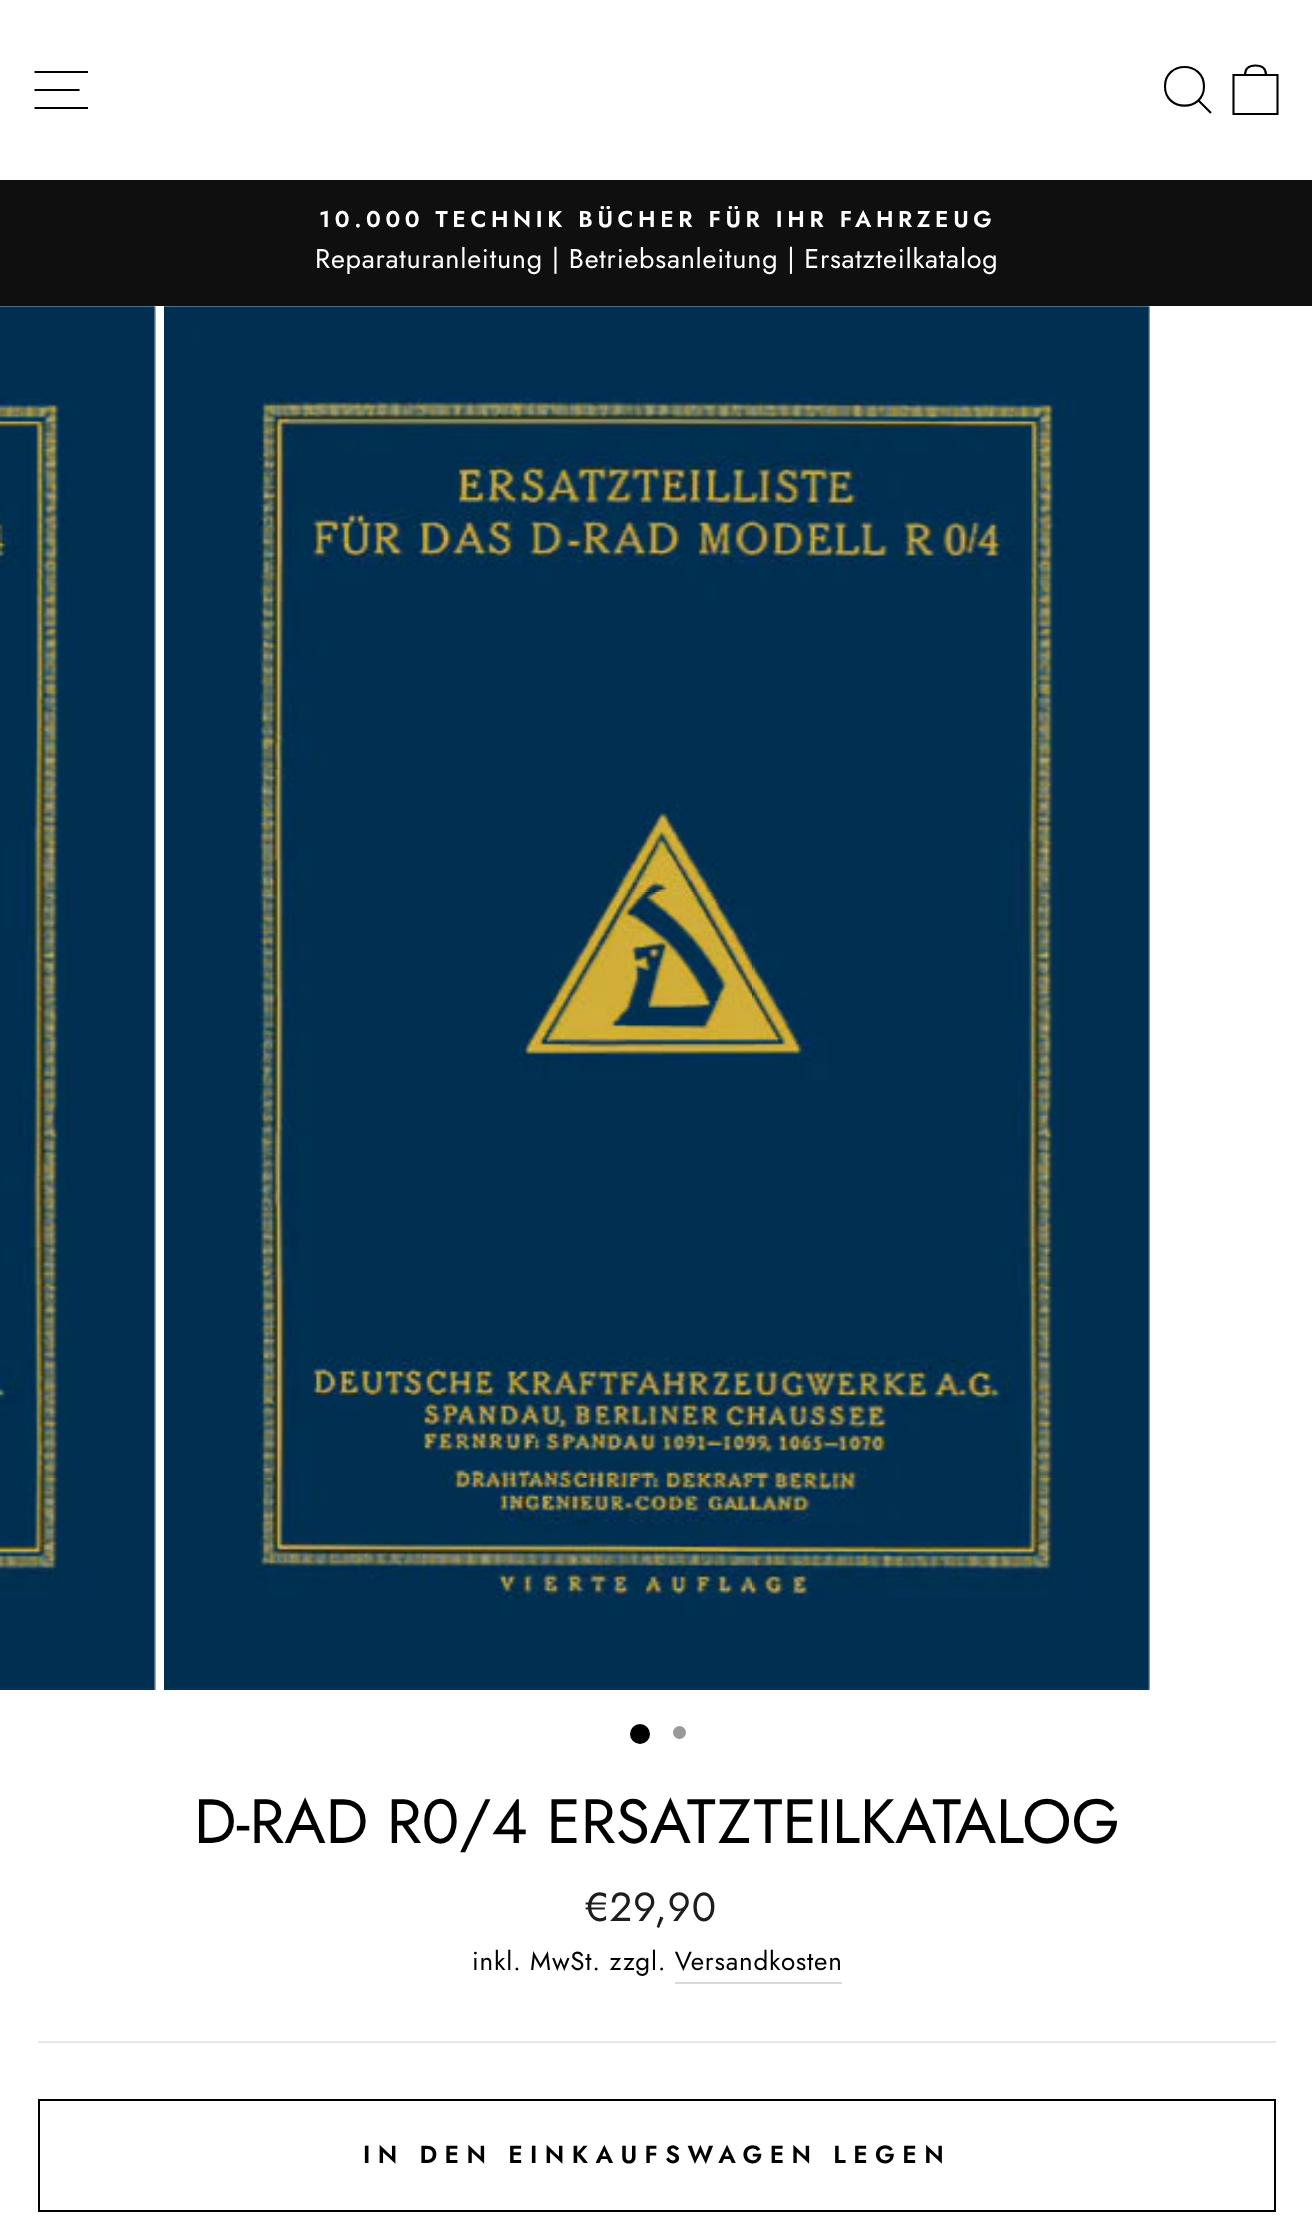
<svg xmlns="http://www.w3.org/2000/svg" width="1312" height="2224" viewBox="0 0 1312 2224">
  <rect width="100%" height="100%" fill="#ffffff"/>
  <path d="M34.5 72H88M34.5 90H79.5M34.5 108H88" fill="none" stroke="#000000" stroke-width="2.1"/>
  <path d="M1204 86.5C1204 112 1165 112 1165 86.5C1165 60.5 1204 60.5 1204 86.5ZM1211 113L1198.5 100.5" fill="none" stroke="#000000" stroke-width="2.1"/>
  <path d="M1233.5 75H1277.5V114H1233.5ZM1245 75C1245 67.5 1250 65.5 1255.5 65.5C1261 65.5 1266 67.5 1266 75" fill="none" stroke="#000000" stroke-width="2.1"/>
  <rect x="0" y="180" width="1312" height="126" fill="#0f0f0f"/>
  <text x="319" y="227" font-family="Jost" font-size="22.95" font-weight="600" letter-spacing="4.6" fill="#ffffff">10.000 TECHNIK BÜCHER FÜR IHR FAHRZEUG</text>
  <text x="315" y="268" font-family="Jost" font-size="27" letter-spacing="0.77" fill="#ffffff">Reparaturanleitung | Betriebsanleitung | Ersatzteilkatalog</text>
  <image x="0" y="306" width="156" height="1384" href="img1.png"/>
  <image x="164" y="306" width="986" height="1384" href="img2.png"/>
  <circle cx="640" cy="1734" r="10" fill="#000000"/>
  <circle cx="679.5" cy="1732.5" r="6.5" fill="#999999"/>
  <text x="194" y="1843" font-family="Jost" font-size="62.4" fill="#000000">D-RAD R0/4 ERSATZTEILKATALOG</text>
  <text x="585" y="1921" font-family="Jost" font-size="40.5" letter-spacing="0.77" fill="#1c1d1d">€29,90</text>
  <text x="472" y="1970" font-family="Jost" font-size="26" letter-spacing="0.77" fill="#000000">inkl. MwSt. zzgl. Versandkosten</text>
  <rect x="675" y="1982" width="167" height="2" fill="#d9d9d9"/>
  <rect x="38" y="2041" width="1238" height="2" fill="#e8e8e1"/>
  <rect x="39" y="2100" width="1236" height="111" fill="none" stroke="#000000" stroke-width="2"/>
  <text x="363" y="2163" font-family="Jost" font-size="24.75" font-weight="600" letter-spacing="7.4" fill="#000000">IN DEN EINKAUFSWAGEN LEGEN</text>
</svg>
